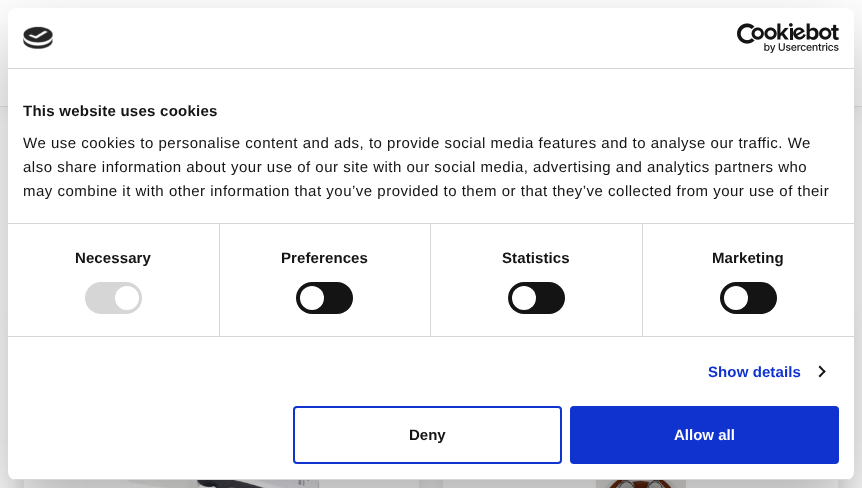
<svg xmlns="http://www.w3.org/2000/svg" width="862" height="488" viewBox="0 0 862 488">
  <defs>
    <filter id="blur1" x="-50%" y="-200%" width="200%" height="500%"><feGaussianBlur stdDeviation="6.5"/></filter>
    <clipPath id="clip1"><path d="M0 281H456V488H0ZM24 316H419V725H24Z" clip-rule="evenodd"/></clipPath>
    <filter id="blur2" x="-50%" y="-200%" width="200%" height="500%"><feGaussianBlur stdDeviation="12"/></filter>
    <clipPath id="clip2"><path d="M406 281H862V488H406ZM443 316H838V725H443Z" clip-rule="evenodd"/></clipPath>
    <filter id="blur3" x="-50%" y="-200%" width="200%" height="500%"><feGaussianBlur stdDeviation="34"/></filter>
    <clipPath id="clip3"><rect x="8" y="8" width="846" height="472" rx="8"/></clipPath>
  </defs>
  <rect width="100%" height="100%" fill="#ffffff"/>
  <rect x="0" y="4" width="862" height="107" fill="#9f8da2" fill-opacity="0.13" filter="url(#blur1)"/>
  <rect x="0" y="0" width="862" height="106" fill="#ffffff"/>
  <rect x="0" y="106" width="862" height="1" fill="#e8e3eb"/>
  <g clip-path="url(#clip1)">
    <rect x="24" y="318" width="395" height="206" fill="#000000" fill-opacity="0.13" filter="url(#blur2)"/>
  </g>
  <image x="122" y="480" width="198" height="8" href="img3.png"/>
  <g clip-path="url(#clip2)">
    <rect x="443" y="318" width="395" height="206" fill="#000000" fill-opacity="0.13" filter="url(#blur2)"/>
  </g>
  <image x="594" y="480" width="94" height="8" href="img4.png"/>
  <rect x="8" y="40" width="846" height="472" rx="8" fill="#000000" fill-opacity="0.3" filter="url(#blur3)"/>
  <rect x="8" y="8" width="846" height="472" rx="8" fill="#ffffff"/>
  <rect x="8" y="68" width="846" height="1" fill="#d6d6d6"/>
  <image x="23" y="26" width="30" height="24" href="img1.png"/>
  <image x="737" y="23" width="102" height="30" href="img2.png"/>
  <rect x="8" y="223" width="846" height="1" fill="#d6d6d6"/>
  <text x="23" y="116" font-family="Liberation Sans" font-size="15" font-weight="bold" letter-spacing="0.25" fill="#141414">This website uses cookies</text>
  <text x="23" y="148" font-family="Liberation Sans" font-size="15" letter-spacing="0.5" fill="#141414">We use cookies to personalise content and ads, to provide social media features and to analyse our traffic. We</text>
  <text x="23" y="172" font-family="Liberation Sans" font-size="15" letter-spacing="0.5" fill="#141414">also share information about your use of our site with our social media, advertising and analytics partners who</text>
  <text x="23" y="196" font-family="Liberation Sans" font-size="15" letter-spacing="0.5" fill="#141414">may combine it with other information that you’ve provided to them or that they’ve collected from your use of their</text>
  <rect x="8" y="336" width="846" height="1" fill="#d6d6d6"/>
  <rect x="219" y="224" width="1" height="112" fill="#d6d6d6"/>
  <text x="75" y="263" font-family="Liberation Sans" font-size="15" font-weight="bold" letter-spacing="0.1" fill="#141414">Necessary</text>
  <rect x="85" y="282" width="57" height="32" rx="16" fill="#d6d6d6"/>
  <circle cx="127" cy="298" r="12" fill="#ffffff"/>
  <rect x="430" y="224" width="1" height="112" fill="#d6d6d6"/>
  <text x="281" y="263" font-family="Liberation Sans" font-size="15" font-weight="bold" letter-spacing="0.1" fill="#141414">Preferences</text>
  <rect x="296" y="282" width="57" height="32" rx="16" fill="#141414"/>
  <circle cx="312" cy="298" r="12" fill="#ffffff"/>
  <rect x="642" y="224" width="1" height="112" fill="#d6d6d6"/>
  <text x="502" y="263" font-family="Liberation Sans" font-size="15" font-weight="bold" letter-spacing="0.1" fill="#141414">Statistics</text>
  <rect x="508" y="282" width="57" height="32" rx="16" fill="#141414"/>
  <circle cx="524" cy="298" r="12" fill="#ffffff"/>
  <text x="712" y="263" font-family="Liberation Sans" font-size="15" font-weight="bold" letter-spacing="0.1" fill="#141414">Marketing</text>
  <rect x="720" y="282" width="57" height="32" rx="16" fill="#141414"/>
  <circle cx="736" cy="298" r="12" fill="#ffffff"/>
  <text x="708" y="377" font-family="Liberation Sans" font-size="15" font-weight="bold" letter-spacing="0.1" fill="#1032cf">Show details</text>
  <path d="M820 365.5L825.5 371.5L824.5 373L818.5 367Z" fill="#141414"/>
  <path d="M824.5 370L825.5 371.5L820 377.5L818.5 376Z" fill="#141414"/>
  <g clip-path="url(#clip3)">
    <rect x="8" y="479" width="846" height="1" fill="#d6d6d6"/>
  </g>
  <rect x="294" y="407" width="267" height="56" rx="3" fill="none" stroke="#1032cf" stroke-width="2"/>
  <text x="409" y="440" font-family="Liberation Sans" font-size="15" font-weight="bold" fill="#141414">Deny</text>
  <rect x="571" y="407" width="267" height="56" rx="3" fill="#1032cf" stroke="#1032cf" stroke-width="2"/>
  <text x="674" y="440" font-family="Liberation Sans" font-size="15" font-weight="bold" fill="#ffffff">Allow all</text>
</svg>
